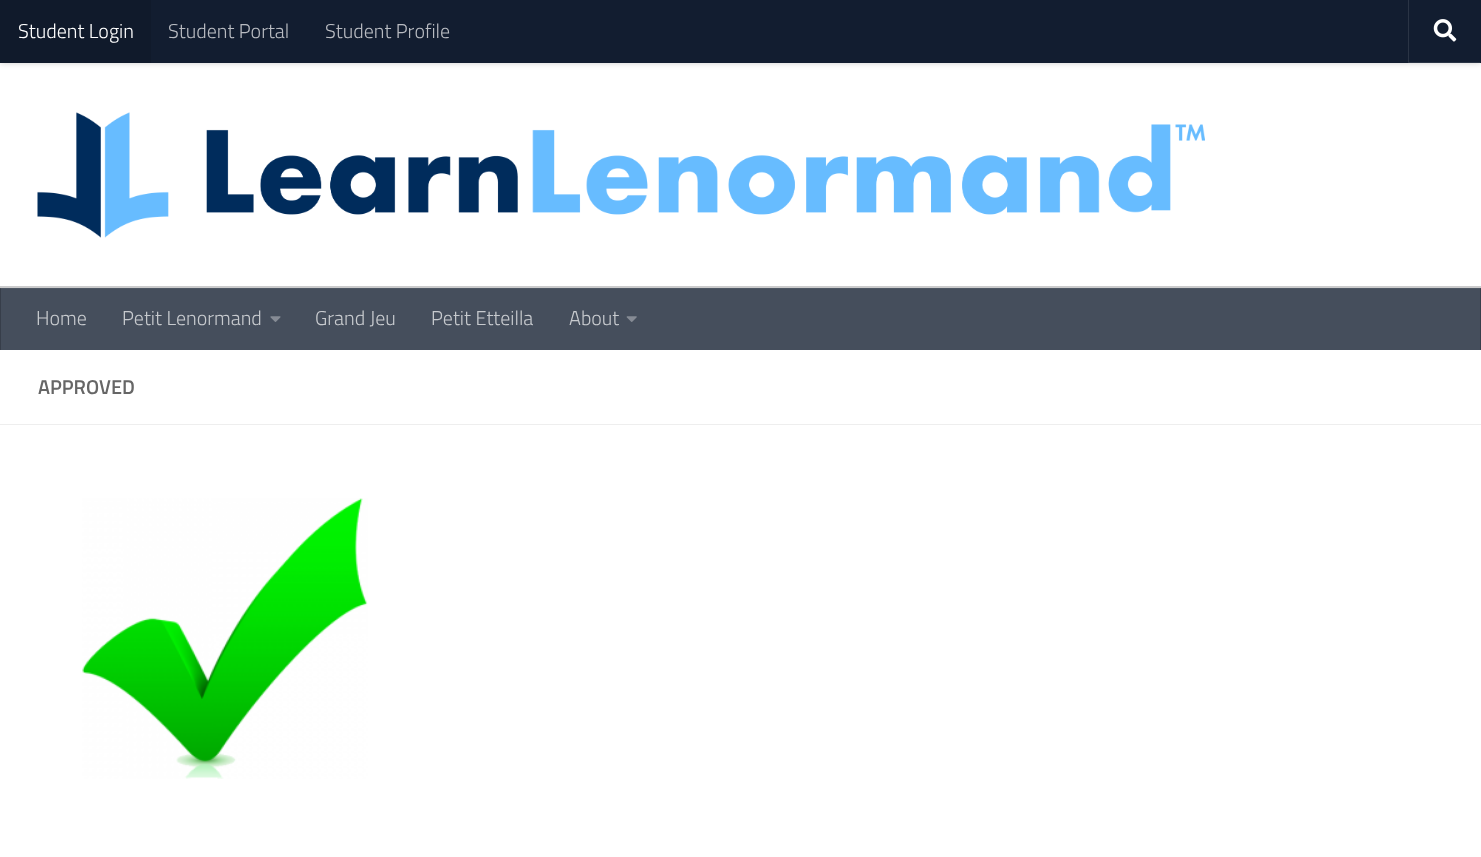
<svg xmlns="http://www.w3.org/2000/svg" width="1481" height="857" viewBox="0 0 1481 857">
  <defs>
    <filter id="blur1" x="-50%" y="-200%" width="200%" height="500%"><feGaussianBlur stdDeviation="3"/></filter>
  </defs>
  <rect width="100%" height="100%" fill="#ffffff"/>
  <rect x="0" y="0" width="1481" height="63" fill="#000000" fill-opacity="0.2" filter="url(#blur1)"/>
  <rect x="151" y="0" width="1330" height="63" fill="#121d30"/>
  <rect x="0" y="0" width="151" height="63" fill="#101a2b"/>
  <text x="18" y="38" font-family="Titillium" font-size="20" font-weight="300" fill="#ffffff">Student Login</text>
  <text x="168" y="38" font-family="Titillium" font-size="20" font-weight="300" fill="#b8bbc1">Student Portal</text>
  <text x="325" y="38" font-family="Titillium" font-size="20" font-weight="300" fill="#b8bbc1">Student Profile</text>
  <path d="M1408 0V63H1480V62H1409V0Z" fill="#2a3445"/>
  <image x="1433" y="19" width="24" height="23" href="img1.png"/>
  <image x="37" y="112" width="1168" height="126" href="img2.png"/>
  <rect x="0" y="286" width="1481" height="2" fill="#cbcbcc"/>
  <rect x="1" y="289" width="1479" height="61" fill="#454e5c"/>
  <rect x="0" y="288" width="1481" height="1" fill="#4e5764"/>
  <rect x="1480" y="288" width="1" height="62" fill="#373e4a"/>
  <rect x="1480" y="288" width="1" height="1" fill="#414853"/>
  <rect x="0" y="288" width="1" height="62" fill="#373e4a"/>
  <rect x="0" y="288" width="1" height="1" fill="#414853"/>
  <text x="36" y="325" font-family="Titillium" font-size="20" font-weight="300" fill="#c7cace">Home</text>
  <text x="122" y="325" font-family="Titillium" font-size="20" font-weight="300" fill="#c7cace">Petit Lenormand</text>
  <image x="270" y="316" width="11" height="6" href="img3.png"/>
  <text x="315" y="325" font-family="Titillium" font-size="20" font-weight="300" fill="#c7cace">Grand Jeu</text>
  <text x="431" y="325" font-family="Titillium" font-size="20" font-weight="300" fill="#c7cace">Petit Etteilla</text>
  <text x="569" y="325" font-family="Titillium" font-size="20" font-weight="300" fill="#c7cace">About</text>
  <image x="626" y="316" width="11" height="6" href="img4.png"/>
  <rect x="0" y="424" width="1481" height="1" fill="#eeeeee"/>
  <text x="38" y="394" font-family="Titillium" font-size="20" font-weight="600" fill="#666666">APPROVED</text>
  <image x="82" y="498" width="286" height="281" href="img5.png"/>
</svg>
